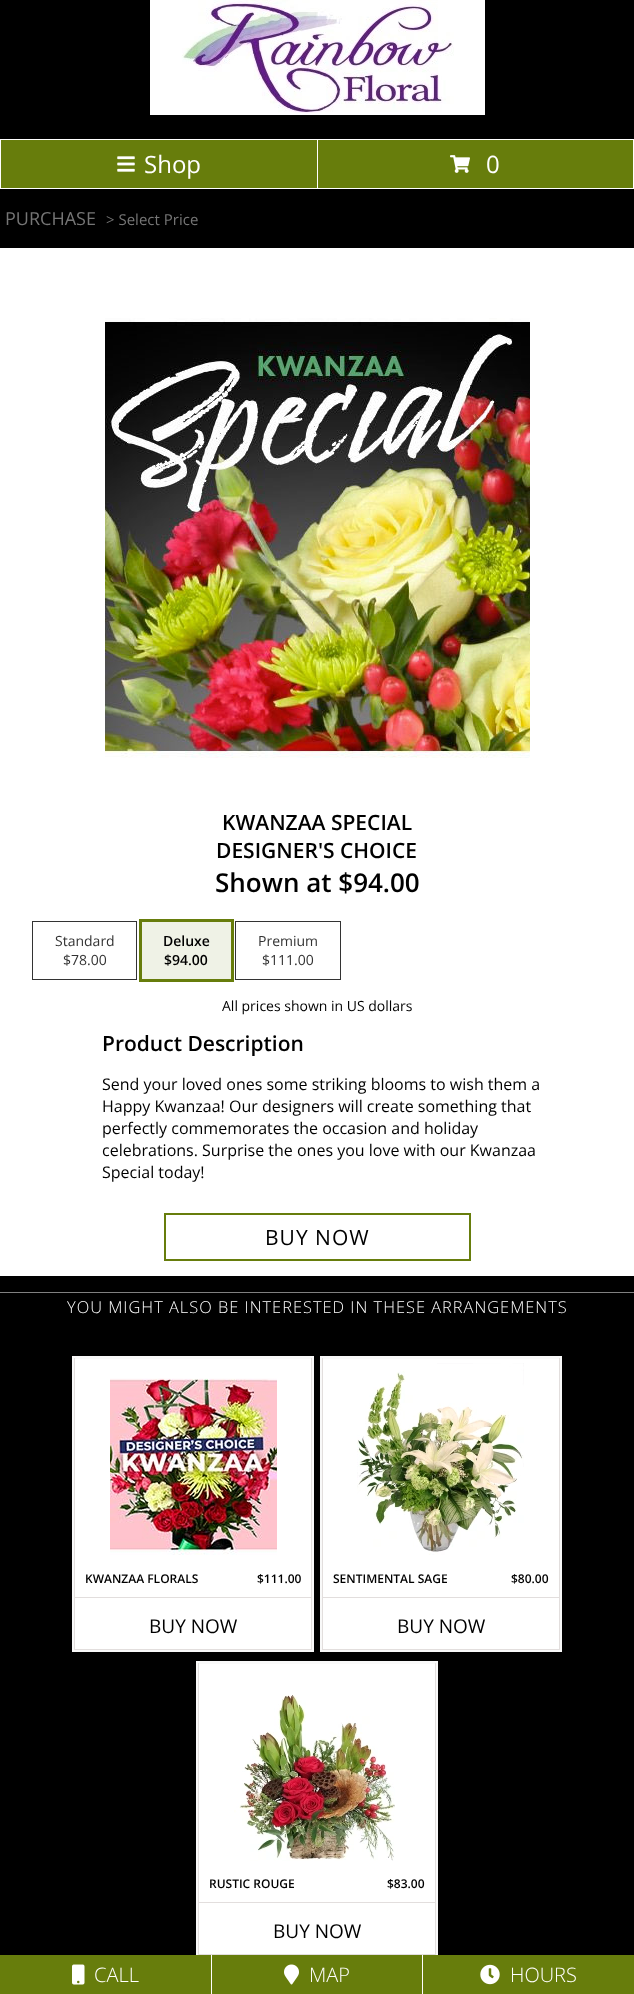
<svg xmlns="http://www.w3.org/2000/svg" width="634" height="1994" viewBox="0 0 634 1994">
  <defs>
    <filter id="blur1" x="-50%" y="-200%" width="200%" height="500%"><feGaussianBlur stdDeviation="0.5"/></filter>
  </defs>
  <rect width="100%" height="100%" fill="#000000"/>
  <image x="150" y="0" width="335" height="115" href="img1.png"/>
  <rect x="0.5" y="139.5" width="633" height="49" fill="none" stroke="#ffffff"/>
  <rect x="317" y="140" width="1" height="48" fill="#ffffff"/>
  <rect x="1" y="140" width="316" height="48" fill="#677d0c"/>
  <image x="117" y="156" width="18" height="16" href="img2.png"/>
  <text x="144" y="173" font-family="Open Sans" font-size="24" fill="#ffffff">Shop</text>
  <rect x="318" y="140" width="315" height="48" fill="#677d0c"/>
  <image x="450" y="155" width="20" height="18" href="img3.png"/>
  <text x="486" y="173" font-family="Open Sans" font-size="24" fill="#ffffff">0</text>
  <text x="5" y="225" font-family="Open Sans" font-size="18" fill="#757575">PURCHASE</text>
  <text x="106" y="225" font-family="Open Sans" font-size="15" fill="#757575">&gt; Select Price</text>
  <rect x="0" y="248" width="634" height="1028" fill="#ffffff"/>
  <image x="105" y="318" width="425" height="440" href="img4.png"/>
  <text x="222" y="830" font-family="Open Sans" font-size="21" font-weight="600" fill="#000000">KWANZAA SPECIAL</text>
  <text x="216" y="858" font-family="Open Sans" font-size="21" font-weight="600" fill="#000000">DESIGNER'S CHOICE</text>
  <text x="215" y="892" font-family="Open Sans" font-size="26" font-weight="600" fill="#000000">Shown at $94.00</text>
  <rect x="32.5" y="921.5" width="104" height="58" fill="none" stroke="#333333"/>
  <text x="55" y="946" font-family="Open Sans" font-size="14" fill="#333333">Standard</text>
  <text x="63" y="965" font-family="Open Sans" font-size="14" fill="#333333">$78.00</text>
  <rect x="140.5" y="920.5" width="92" height="60" fill="none" stroke="#677d0c" stroke-width="3"/>
  <rect x="142" y="922" width="89" height="57" fill="#eff2e6"/>
  <text x="163" y="946" font-family="Open Sans" font-size="14" font-weight="600" fill="#000000">Deluxe</text>
  <text x="164" y="965" font-family="Open Sans" font-size="14" font-weight="600" fill="#000000">$94.00</text>
  <rect x="235.5" y="921.5" width="105" height="58" fill="none" stroke="#333333"/>
  <text x="258" y="946" font-family="Open Sans" font-size="14" fill="#333333">Premium</text>
  <text x="262" y="965" font-family="Open Sans" font-size="14" fill="#333333">$111.00</text>
  <text x="222" y="1011" font-family="Open Sans" font-size="14" fill="#000000">All prices shown in US dollars</text>
  <text x="102" y="1051" font-family="Open Sans" font-size="21" font-weight="600" fill="#000000">Product Description</text>
  <text x="102" y="1090" font-family="Open Sans" font-size="16" fill="#000000">Send your loved ones some striking blooms to wish them a</text>
  <text x="102" y="1112" font-family="Open Sans" font-size="16" fill="#000000">Happy Kwanzaa! Our designers will create something that</text>
  <text x="102" y="1134" font-family="Open Sans" font-size="16" fill="#000000">perfectly commemorates the occasion and holiday</text>
  <text x="102" y="1156" font-family="Open Sans" font-size="16" fill="#000000">celebrations. Surprise the ones you love with our Kwanzaa</text>
  <text x="102" y="1178" font-family="Open Sans" font-size="16" fill="#000000">Special today!</text>
  <rect x="165" y="1214" width="305" height="46" fill="none" stroke="#677d0c" stroke-width="2"/>
  <text x="265" y="1245" font-family="Open Sans" font-size="21" letter-spacing="1" fill="#000000">BUY NOW</text>
  <rect x="0" y="1292" width="634" height="1" fill="#808080"/>
  <text x="67" y="1313" font-family="Open Sans" font-size="16.4" font-weight="300" letter-spacing="1" fill="#ffffff">YOU MIGHT ALSO BE INTERESTED IN THESE ARRANGEMENTS</text>
  <rect x="72" y="1356" width="242" height="296" fill="#f9f9f9" filter="url(#blur1)"/>
  <rect x="75" y="1359" width="236" height="290" fill="#ffffff"/>
  <rect x="311" y="1358" width="1" height="292" fill="#e2dedd"/>
  <rect x="74" y="1649" width="238" height="1" fill="#e2dedd"/>
  <rect x="74" y="1358" width="1" height="292" fill="#e2dedd"/>
  <image x="110" y="1378" width="167" height="177" href="img5.png"/>
  <text x="85" y="1583" font-family="Open Sans" font-size="12" font-weight="600" fill="#000000">KWANZAA FLORALS</text>
  <text x="257" y="1583" font-family="Open Sans" font-size="12" font-weight="600" fill="#000000">$111.00</text>
  <rect x="75" y="1597" width="236" height="1" fill="#e2dedd"/>
  <text x="149" y="1633" font-family="Open Sans" font-size="19" fill="#000000">BUY NOW</text>
  <rect x="320" y="1356" width="242" height="296" fill="#f9f9f9" filter="url(#blur1)"/>
  <rect x="323" y="1359" width="236" height="290" fill="#ffffff"/>
  <rect x="559" y="1358" width="1" height="292" fill="#e2dedd"/>
  <rect x="322" y="1649" width="238" height="1" fill="#e2dedd"/>
  <rect x="322" y="1358" width="1" height="292" fill="#e2dedd"/>
  <image x="357" y="1363" width="167" height="192" href="img6.png"/>
  <text x="333" y="1583" font-family="Open Sans" font-size="12" font-weight="600" fill="#000000">SENTIMENTAL SAGE</text>
  <text x="511" y="1583" font-family="Open Sans" font-size="12" font-weight="600" fill="#000000">$80.00</text>
  <rect x="323" y="1597" width="236" height="1" fill="#e2dedd"/>
  <text x="397" y="1633" font-family="Open Sans" font-size="19" fill="#000000">BUY NOW</text>
  <rect x="196" y="1661" width="242" height="296" fill="#f9f9f9" filter="url(#blur1)"/>
  <rect x="199" y="1664" width="236" height="290" fill="#ffffff"/>
  <rect x="435" y="1663" width="1" height="292" fill="#e2dedd"/>
  <rect x="198" y="1954" width="238" height="1" fill="#e2dedd"/>
  <rect x="198" y="1663" width="1" height="292" fill="#e2dedd"/>
  <image x="234" y="1695" width="161" height="166" href="img7.png"/>
  <text x="209" y="1888" font-family="Open Sans" font-size="12" font-weight="600" fill="#000000">RUSTIC ROUGE</text>
  <text x="387" y="1888" font-family="Open Sans" font-size="12" font-weight="600" fill="#000000">$83.00</text>
  <rect x="199" y="1902" width="236" height="1" fill="#e2dedd"/>
  <text x="273" y="1938" font-family="Open Sans" font-size="19" fill="#000000">BUY NOW</text>
  <rect x="0" y="1955" width="211" height="39" fill="#677d0c"/>
  <image x="72" y="1964" width="13" height="21" href="img8.png"/>
  <text x="94" y="1982" font-family="Open Sans" font-size="20" font-weight="300" fill="#ffffff">CALL</text>
  <rect x="212" y="1955" width="210" height="39" fill="#677d0c"/>
  <rect x="211" y="1955" width="1" height="39" fill="#ffffff"/>
  <image x="284" y="1964" width="15" height="21" href="img9.png"/>
  <text x="309" y="1982" font-family="Open Sans" font-size="20" font-weight="300" fill="#ffffff">MAP</text>
  <rect x="423" y="1955" width="211" height="39" fill="#677d0c"/>
  <rect x="422" y="1955" width="1" height="39" fill="#ffffff"/>
  <image x="480" y="1964" width="20" height="21" href="img10.png"/>
  <text x="510" y="1982" font-family="Open Sans" font-size="20" font-weight="300" fill="#ffffff">HOURS</text>
</svg>
